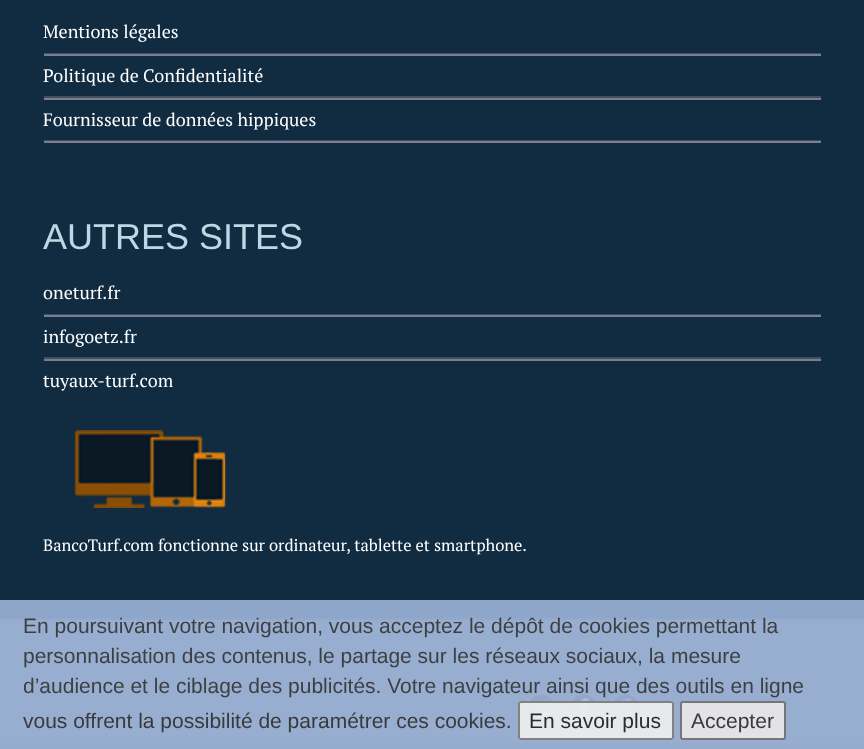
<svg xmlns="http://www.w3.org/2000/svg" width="864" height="749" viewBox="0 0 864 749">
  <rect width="100%" height="100%" fill="#112b40"/>
  <rect x="0" y="600" width="864" height="18" fill="#8ea6c9"/>
  <rect x="44" y="53" width="777" height="1" fill="#494d5a"/>
  <text x="43" y="38" font-family="PT Serif" font-size="18" fill="#ffffff">Mentions légales</text>
  <rect x="44" y="54" width="777" height="2" fill="#787f94"/>
  <rect x="44" y="96" width="777" height="2" fill="#494d5a"/>
  <text x="43" y="82" font-family="PT Serif" font-size="18" fill="#ffffff">Politique de Confidentialité</text>
  <rect x="44" y="98" width="777" height="2" fill="#787f94"/>
  <rect x="44" y="140" width="777" height="1" fill="#494d5a"/>
  <text x="43" y="126" font-family="PT Serif" font-size="18" fill="#ffffff">Fournisseur de données hippiques</text>
  <rect x="44" y="141" width="777" height="2" fill="#787f94"/>
  <text x="43" y="249" font-family="Liberation Sans" font-size="36" fill="#bfd6e4">AUTRES SITES</text>
  <rect x="44" y="314" width="777" height="1" fill="#494d5a"/>
  <text x="43" y="299" font-family="PT Serif" font-size="18" fill="#ffffff">oneturf.fr</text>
  <rect x="44" y="315" width="777" height="2" fill="#787f94"/>
  <rect x="44" y="357" width="777" height="2" fill="#494d5a"/>
  <text x="43" y="343" font-family="PT Serif" font-size="18" fill="#ffffff">infogoetz.fr</text>
  <rect x="44" y="359" width="777" height="2" fill="#787f94"/>
  <text x="43" y="387" font-family="PT Serif" font-size="18" fill="#ffffff">tuyaux-turf.com</text>
  <image x="74" y="430" width="152" height="78" href="img1.png"/>
  <text x="43" y="551" font-family="PT Serif" font-size="16.5" fill="#ffffff">BancoTurf.com fonctionne sur ordinateur, tablette et smartphone.</text>
  <rect x="0" y="620" width="864" height="123" fill="#98aed0"/>
  <rect x="0" y="618" width="864" height="2" fill="#93a9ca"/>
  <text x="23" y="633" font-family="Liberation Sans" font-size="21" fill="#3d3f43">En poursuivant votre navigation, vous acceptez le dépôt de cookies permettant la</text>
  <text x="23" y="663" font-family="Liberation Sans" font-size="21" fill="#3d3f43">personnalisation des contenus, le partage sur les réseaux sociaux, la mesure</text>
  <image x="523" y="691" width="37" height="36" href="img2.png"/>
  <image x="565" y="691" width="37" height="36" href="img3.png"/>
  <image x="607" y="691" width="37" height="36" href="img4.png"/>
  <text x="23" y="693" font-family="Liberation Sans" font-size="21" fill="#3d3f43">d’audience et le ciblage des publicités. Votre navigateur ainsi que des outils en ligne</text>
  <text x="23" y="728" font-family="Liberation Sans" font-size="21" fill="#393a3c">vous offrent la possibilité de paramétrer ces cookies.</text>
  <rect x="518" y="701" width="156" height="39" rx="3" fill="#efefef" fill-opacity="0.9"/>
  <rect x="519" y="702" width="154" height="37" rx="2" fill="none" stroke="#767676" stroke-opacity="0.9" stroke-width="2"/>
  <text x="529" y="728" font-family="Liberation Sans" font-size="21" fill="#2b2c30">En savoir plus</text>
  <rect x="681" y="702" width="104" height="37" rx="2" fill="#e3e3e5" stroke="#767678" stroke-width="2"/>
  <text x="691" y="728" font-family="Liberation Sans" font-size="21" fill="#393a3c">Accepter</text>
  <rect x="0" y="743" width="864" height="6" fill="#96acce"/>
</svg>
